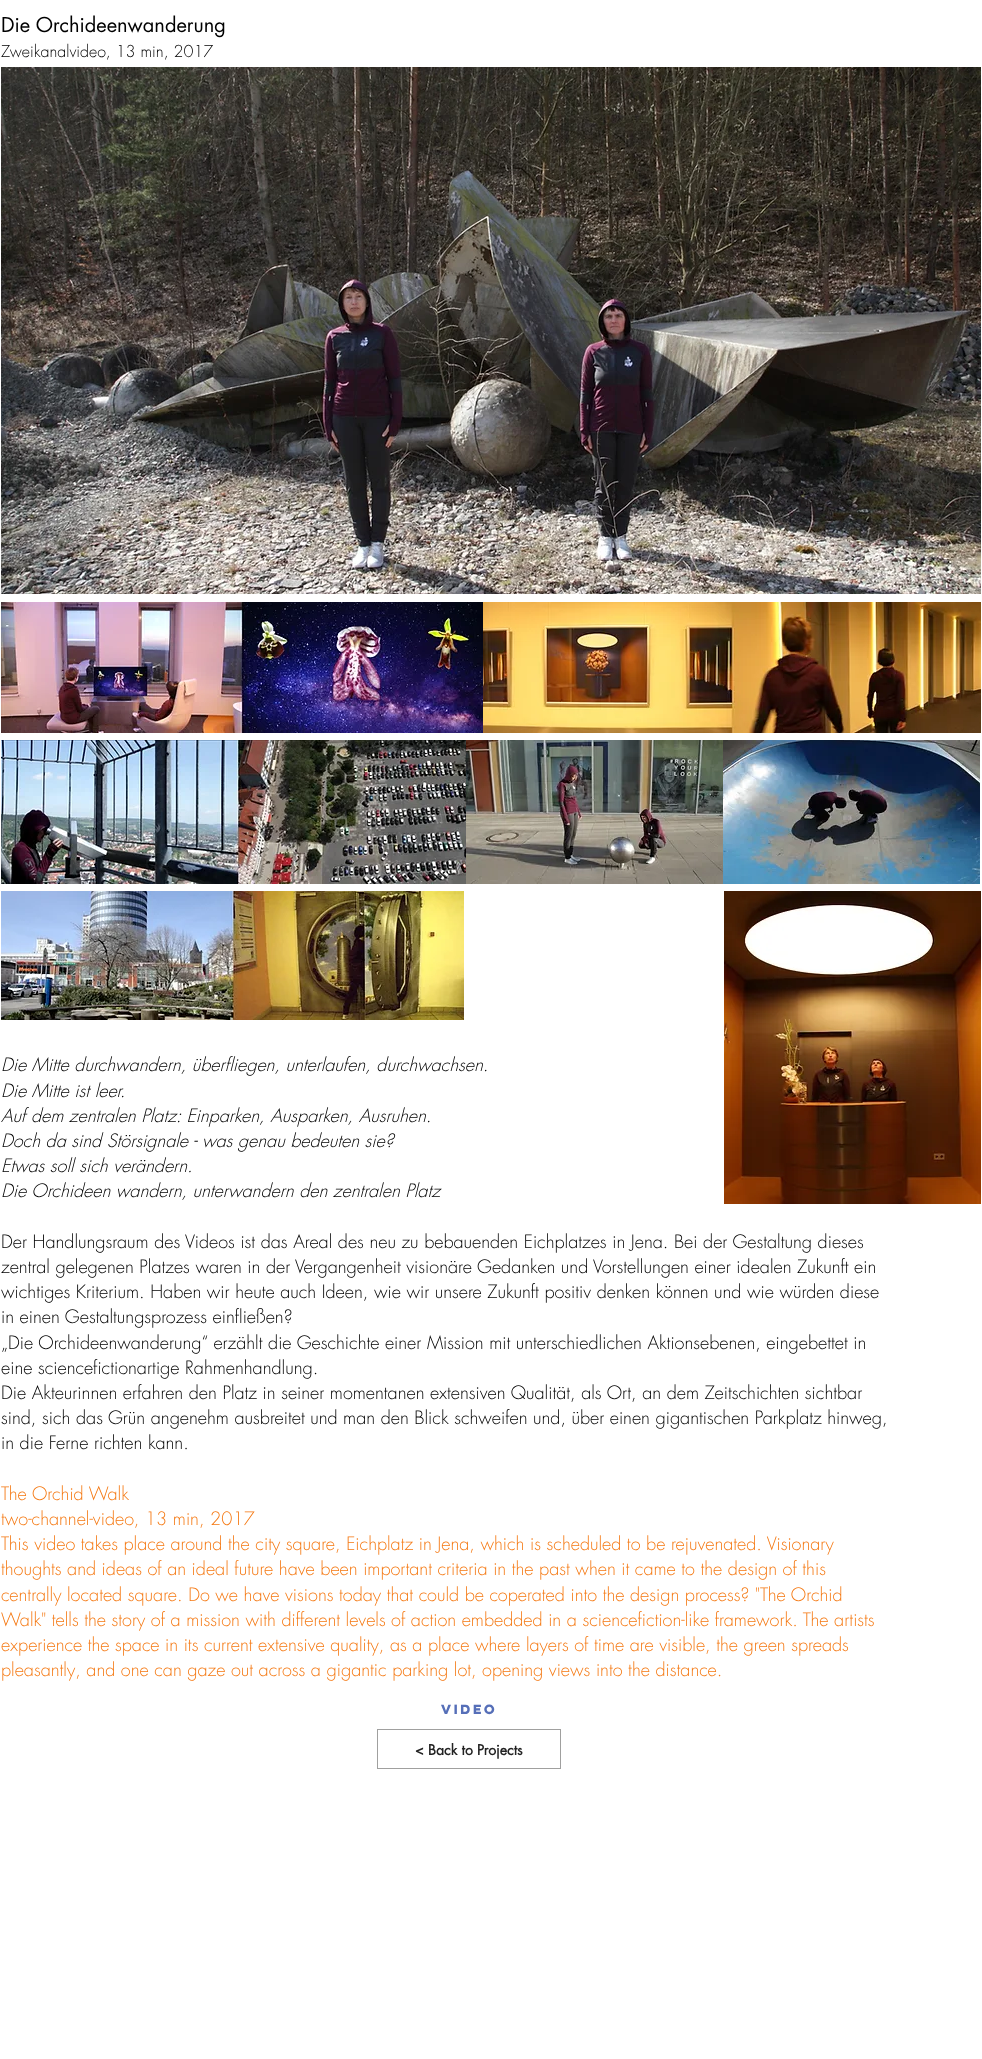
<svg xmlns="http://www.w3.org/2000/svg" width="982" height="2059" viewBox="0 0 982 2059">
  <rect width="100%" height="100%" fill="#ffffff"/>
  <text x="1" y="32" font-family="futura" font-size="20" fill="#000000">Die Orchideenwanderung</text>
  <text x="1" y="57" font-family="futura" font-size="16" font-weight="300" fill="#000000">Zweikanalvideo, 13 min, 2017</text>
  <image x="1" y="67" width="980" height="527" href="img1.png"/>
  <image x="1" y="602" width="482" height="131" href="img2.png"/>
  <image x="483" y="602" width="498" height="131" href="img3.png"/>
  <image x="1" y="740" width="465" height="144" href="img4.png"/>
  <image x="466" y="740" width="257" height="144" href="img5.png"/>
  <image x="723" y="740" width="257" height="144" href="img6.png"/>
  <image x="1" y="891" width="463" height="129" href="img7.png"/>
  <image x="724" y="891" width="257" height="313" href="img8.png"/>
  <text x="1" y="1071" font-family="futura" font-size="18" font-weight="300" font-style="italic" fill="#000000">Die Mitte durchwandern, überfliegen, unterlaufen, durchwachsen.</text>
  <text x="1" y="1097" font-family="futura" font-size="18" font-weight="300" font-style="italic" fill="#000000">Die Mitte ist leer.</text>
  <text x="1" y="1122" font-family="futura" font-size="18" font-weight="300" font-style="italic" fill="#000000">Auf dem zentralen Platz: Einparken, Ausparken, Ausruhen.</text>
  <text x="1" y="1147" font-family="futura" font-size="18" font-weight="300" font-style="italic" fill="#000000">Doch da sind Störsignale - was genau bedeuten sie?</text>
  <text x="1" y="1172" font-family="futura" font-size="18" font-weight="300" font-style="italic" fill="#000000">Etwas soll sich verändern.</text>
  <text x="1" y="1197" font-family="futura" font-size="18" font-weight="300" font-style="italic" fill="#000000">Die Orchideen wandern, unterwandern den zentralen Platz</text>
  <text x="1" y="1248" font-family="futura" font-size="18" font-weight="300" fill="#000000">Der Handlungsraum des Videos ist das Areal des neu zu bebauenden Eichplatzes in Jena. Bei der Gestaltung dieses</text>
  <text x="1" y="1273" font-family="futura" font-size="18" font-weight="300" fill="#000000">zentral gelegenen Platzes waren in der Vergangenheit visionäre Gedanken und Vorstellungen einer idealen Zukunft ein</text>
  <text x="1" y="1298" font-family="futura" font-size="18" font-weight="300" fill="#000000">wichtiges Kriterium. Haben wir heute auch Ideen, wie wir unsere Zukunft positiv denken können und wie würden diese</text>
  <text x="1" y="1323" font-family="futura" font-size="18" font-weight="300" fill="#000000">in einen Gestaltungsprozess einfließen?</text>
  <text x="1" y="1349" font-family="futura" font-size="18" font-weight="300" fill="#000000">„Die Orchideenwanderung“ erzählt die Geschichte einer Mission mit unterschiedlichen Aktionsebenen, eingebettet in</text>
  <text x="1" y="1374" font-family="futura" font-size="18" font-weight="300" fill="#000000">eine sciencefictionartige Rahmenhandlung.</text>
  <text x="1" y="1399" font-family="futura" font-size="18" font-weight="300" fill="#000000">Die Akteurinnen erfahren den Platz in seiner momentanen extensiven Qualität, als Ort, an dem Zeitschichten sichtbar</text>
  <text x="1" y="1424" font-family="futura" font-size="18" font-weight="300" fill="#000000">sind, sich das Grün angenehm ausbreitet und man den Blick schweifen und, über einen gigantischen Parkplatz hinweg,</text>
  <text x="1" y="1449" font-family="futura" font-size="18" font-weight="300" fill="#000000">in die Ferne richten kann.</text>
  <text x="1" y="1500" font-family="futura" font-size="18" font-weight="300" fill="#f57913">The Orchid Walk</text>
  <text x="1" y="1525" font-family="futura" font-size="18" font-weight="300" fill="#f57913">two-channel-video, 13 min, 2017</text>
  <text x="1" y="1550" font-family="futura" font-size="18" font-weight="300" fill="#f57913">This video takes place around the city square, Eichplatz in Jena, which is scheduled to be rejuvenated. Visionary</text>
  <text x="1" y="1575" font-family="futura" font-size="18" font-weight="300" fill="#f57913">thoughts and ideas of an ideal future have been important criteria in the past when it came to the design of this</text>
  <text x="1" y="1601" font-family="futura" font-size="18" font-weight="300" fill="#f57913">centrally located square. Do we have visions today that could be coperated into the design process? "The Orchid</text>
  <text x="1" y="1626" font-family="futura" font-size="18" font-weight="300" fill="#f57913">Walk" tells the story of a mission with different levels of action embedded in a sciencefiction-like framework. The artists</text>
  <text x="1" y="1651" font-family="futura" font-size="18" font-weight="300" fill="#f57913">experience the space in its current extensive quality, as a place where layers of time are visible, the green spreads</text>
  <text x="1" y="1676" font-family="futura" font-size="18" font-weight="300" fill="#f57913">pleasantly, and one can gaze out across a gigantic parking lot, opening views into the distance.</text>
  <text x="441" y="1714" font-family="'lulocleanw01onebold'" font-size="12" font-weight="bold" fill="#566fb8">Video</text>
  <rect x="377.5" y="1729.5" width="183" height="39" fill="none" stroke="#a0a09f"/>
  <text x="415" y="1755" font-family="futura" font-size="14" font-weight="bold" fill="#232323">&lt; Back to Projects</text>
</svg>
